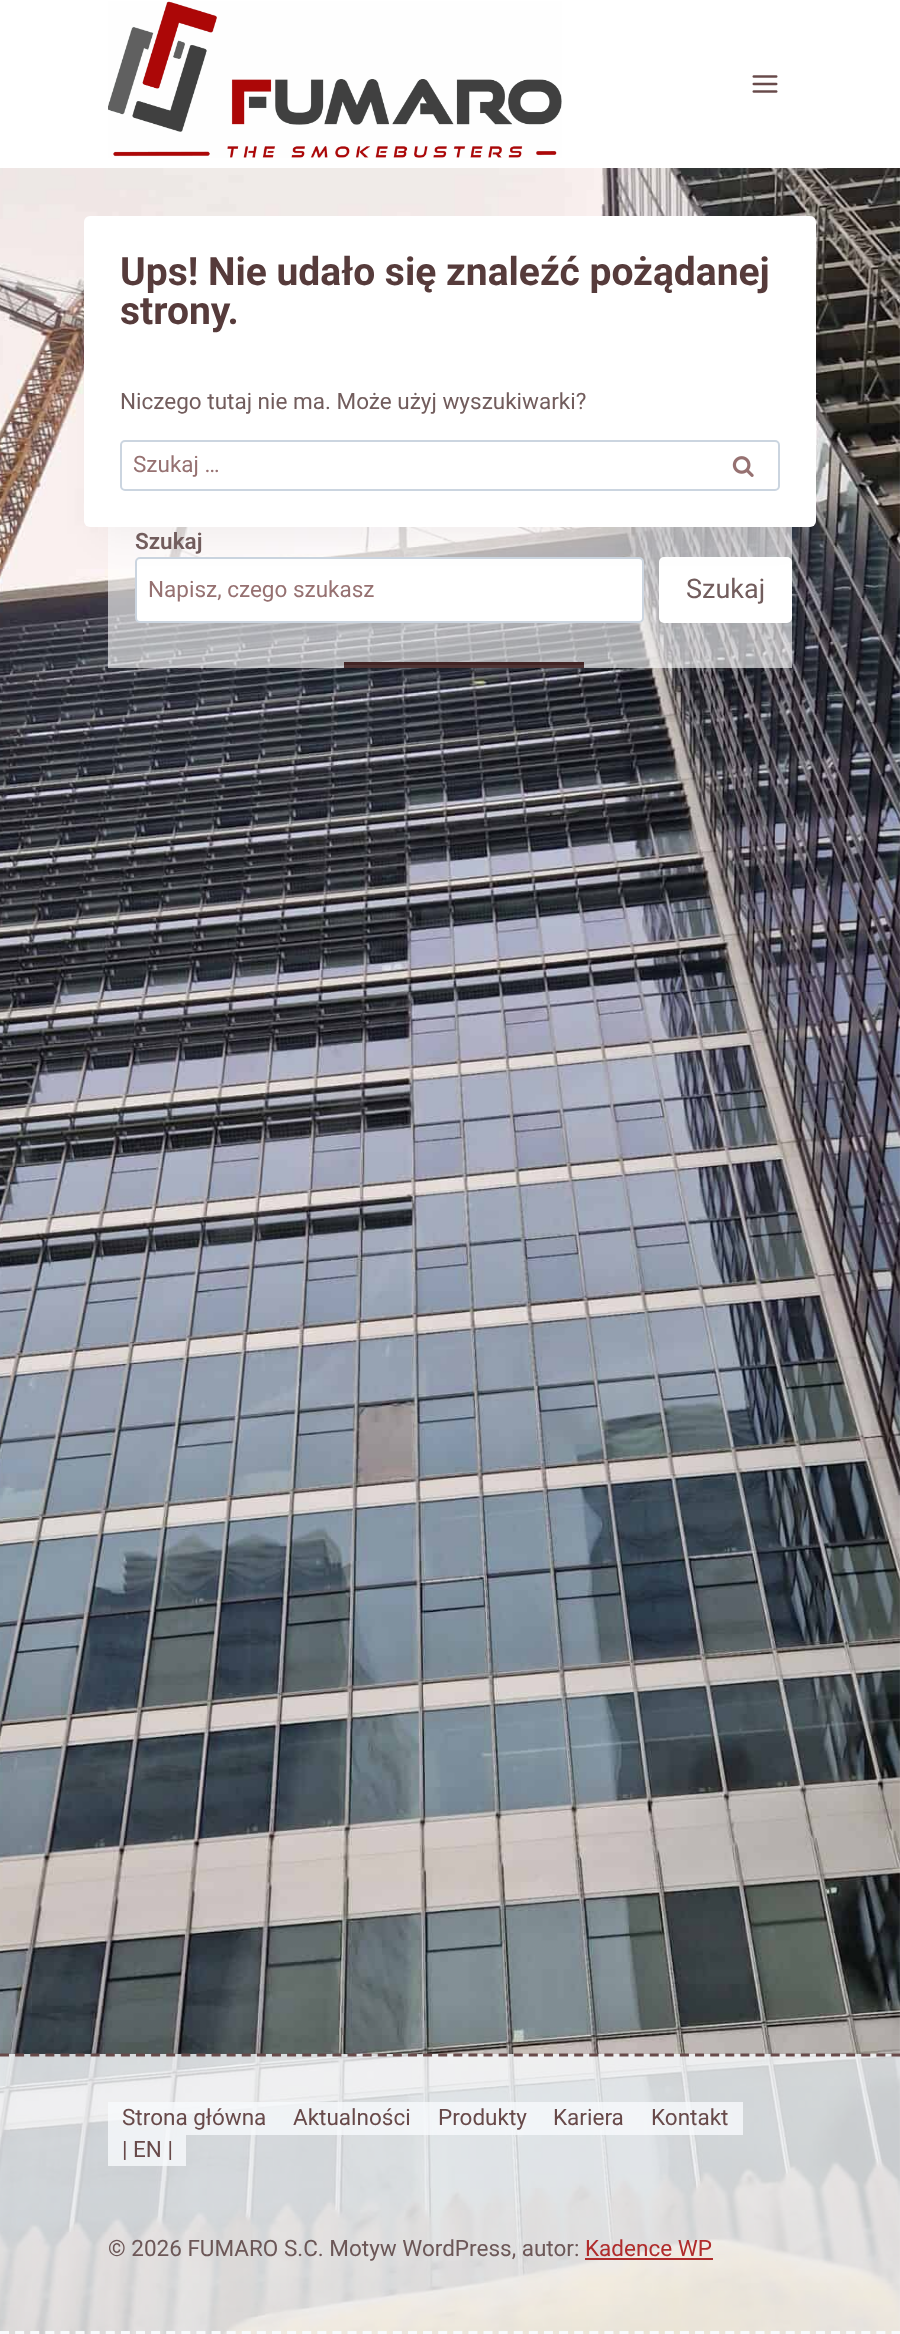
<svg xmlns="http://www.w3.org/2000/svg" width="900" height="2334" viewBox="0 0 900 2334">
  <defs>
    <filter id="blur1" x="-50%" y="-200%" width="200%" height="500%"><feGaussianBlur stdDeviation="19"/></filter>
  </defs>
  <rect width="100%" height="100%" fill="#ffffff"/>
  <image x="0" y="168" width="900" height="2166" href="img1.png"/>
  <image x="108" y="1" width="454" height="157" href="img2.png"/>
  <image x="752" y="75" width="26" height="18" href="img3.png"/>
  <rect x="108" y="527" width="684" height="141" fill="#ffffff" fill-opacity="0.62"/>
  <rect x="136" y="558" width="507" height="64" rx="4" fill="#ffffff" stroke="#cbd5e0" stroke-width="2"/>
  <rect x="659" y="557" width="133" height="66" rx="5" fill="#ffffff"/>
  <rect x="99" y="254" width="702" height="280" fill="#000000" fill-opacity="0.05" filter="url(#blur1)"/>
  <rect x="84" y="216" width="732" height="311" rx="6" fill="#ffffff"/>
  <text x="120" y="285" font-family="Roboto" font-size="39" font-weight="bold" fill="#563b3b">Ups! Nie udało się znaleźć pożądanej</text>
  <text x="120" y="324" font-family="Roboto" font-size="39" font-weight="bold" fill="#563b3b">strony.</text>
  <text x="120" y="409" font-family="Roboto" font-size="22.5" fill="#725d5d">Niczego tutaj nie ma. Może użyj wyszukiwarki?</text>
  <rect x="121" y="441" width="658" height="49" rx="4" fill="none" stroke="#cbd5e0" stroke-width="2"/>
  <text x="133" y="472" font-family="Roboto" font-size="22.5" fill="#967171">Szukaj …</text>
  <image x="732" y="456" width="22" height="21" href="img4.png"/>
  <text x="135" y="549" font-family="Roboto" font-size="22.5" font-weight="600" fill="#725d5d">Szukaj</text>
  <text x="148" y="597" font-family="Roboto" font-size="22.5" fill="#967171">Napisz, czego szukasz</text>
  <text x="686" y="598" font-family="Roboto" font-size="27" fill="#725d5d">Szukaj</text>
  <rect x="344" y="662" width="240" height="6" fill="#412323" fill-opacity="0.89"/>
  <rect x="344" y="662" width="240" height="3" fill="#412323" fill-opacity="0.89"/>
  <rect x="0" y="2054" width="900" height="280" fill="#f7fafc" fill-opacity="0.81"/>
  <path d="M0 2055H900" fill="none" stroke="#684a4a" stroke-width="3" stroke-dasharray="9 6.11"/>
  <path d="M0 2332.5H900" fill="none" stroke="#f7fafc" stroke-width="3" stroke-dasharray="9 6.11"/>
  <rect x="108" y="2102" width="171" height="33" fill="#f7fafc" fill-opacity="0.79"/>
  <text x="122" y="2125" font-family="Roboto" font-size="22.5" fill="#684a4a">Strona główna</text>
  <rect x="279" y="2102" width="146" height="33" fill="#f7fafc" fill-opacity="0.79"/>
  <text x="293" y="2125" font-family="Roboto" font-size="22.5" fill="#684a4a">Aktualności</text>
  <rect x="425" y="2102" width="115" height="33" fill="#f7fafc" fill-opacity="0.79"/>
  <text x="438" y="2125" font-family="Roboto" font-size="22.5" fill="#684a4a">Produkty</text>
  <rect x="540" y="2102" width="98" height="33" fill="#f7fafc" fill-opacity="0.79"/>
  <text x="553" y="2125" font-family="Roboto" font-size="22.5" fill="#684a4a">Kariera</text>
  <rect x="638" y="2102" width="105" height="33" fill="#f7fafc" fill-opacity="0.79"/>
  <text x="651" y="2125" font-family="Roboto" font-size="22.5" fill="#684a4a">Kontakt</text>
  <rect x="108" y="2135" width="78" height="31" fill="#f7fafc" fill-opacity="0.79"/>
  <text x="122" y="2157" font-family="Roboto" font-size="22.5" fill="#684a4a">| EN |</text>
  <text x="108" y="2256" font-family="Roboto" font-size="22.5" fill="#6c5757">© 2026 FUMARO S.C. Motyw WordPress, autor:</text>
  <text x="585" y="2256" font-family="Roboto" font-size="22.5" fill="#b02b2b">Kadence WP</text>
  <rect x="585" y="2258" width="128" height="2" fill="#b02b2b"/>
</svg>
